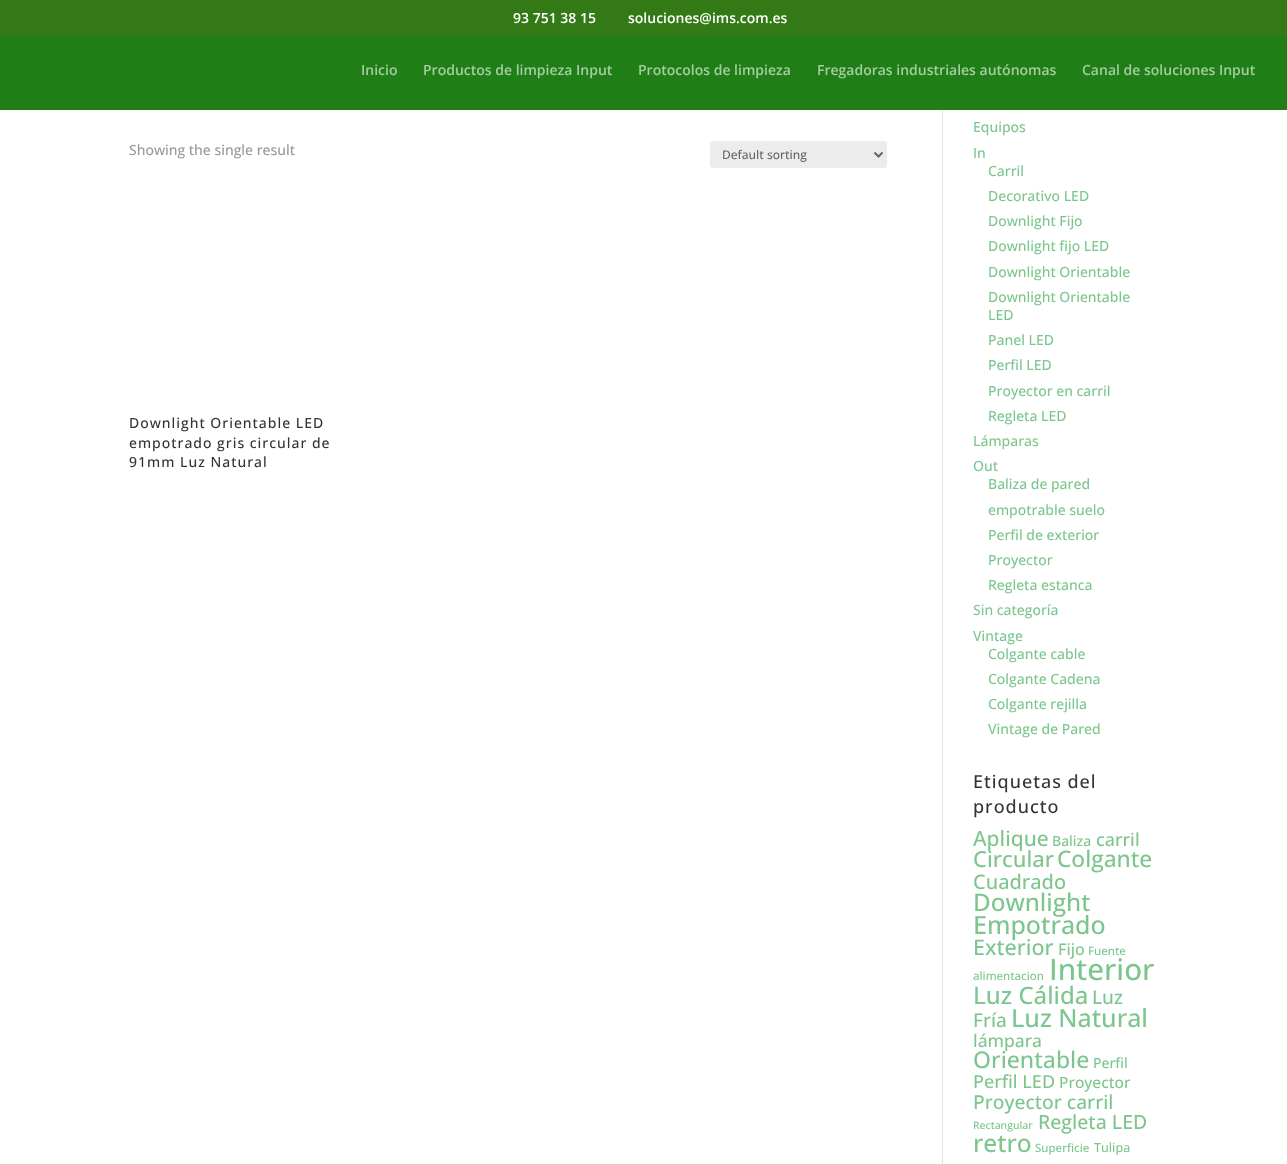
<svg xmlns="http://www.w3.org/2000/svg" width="1287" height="1164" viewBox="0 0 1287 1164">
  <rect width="100%" height="100%" fill="#ffffff"/>
  <rect x="0" y="0" width="1287" height="36" fill="#337a17"/>
  <text x="513" y="23" font-family="Open Sans" font-size="14" font-weight="600" fill="#ffffff">93 751 38 15</text>
  <text x="628" y="23" font-family="Open Sans" font-size="14" font-weight="600" fill="#ffffff">soluciones@ims.com.es</text>
  <rect x="942" y="36" width="1" height="1128" fill="#e2e2e2"/>
  <rect x="0" y="36" width="1287" height="74" fill="#167a0d" fill-opacity="0.96"/>
  <text x="361" y="75" font-family="Open Sans" font-size="14" font-weight="600" fill="#a6cca2">Inicio</text>
  <text x="423" y="75" font-family="Open Sans" font-size="14" font-weight="600" fill="#a6cca2">Productos de limpieza Input</text>
  <text x="638" y="75" font-family="Open Sans" font-size="14" font-weight="600" fill="#a6cca2">Protocolos de limpieza</text>
  <text x="817" y="75" font-family="Open Sans" font-size="14" font-weight="600" fill="#a6cca2">Fregadoras industriales autónomas</text>
  <text x="1082" y="75" font-family="Open Sans" font-size="14" font-weight="600" fill="#a6cca2">Canal de soluciones Input</text>
  <text x="129" y="155" font-family="Open Sans" font-size="14" font-weight="500" fill="#999999">Showing the single result</text>
  <rect x="710" y="141" width="177" height="27" rx="3" fill="#ececec"/>
  <path d="M874.5 152.5L878.5 156.5L882.5 152.5" fill="none" stroke="#666666" stroke-width="2"/>
  <text x="722" y="159" font-family="Open Sans" font-size="12" font-weight="500" fill="#666666">Default sorting</text>
  <text x="129" y="428" font-family="Open Sans" font-size="14" font-weight="500" letter-spacing="1" fill="#333333">Downlight Orientable LED</text>
  <text x="129" y="448" font-family="Open Sans" font-size="14" font-weight="500" letter-spacing="1" fill="#333333">empotrado gris circular de</text>
  <text x="129" y="467" font-family="Open Sans" font-size="14" font-weight="500" letter-spacing="1" fill="#333333">91mm Luz Natural</text>
  <text x="973" y="132" font-family="Open Sans" font-size="14" font-weight="500" fill="#7cc68d">Equipos</text>
  <text x="973" y="158" font-family="Open Sans" font-size="14" font-weight="500" fill="#7cc68d">In</text>
  <text x="988" y="176" font-family="Open Sans" font-size="14" font-weight="500" fill="#7cc68d">Carril</text>
  <text x="988" y="201" font-family="Open Sans" font-size="14" font-weight="500" fill="#7cc68d">Decorativo LED</text>
  <text x="988" y="226" font-family="Open Sans" font-size="14" font-weight="500" fill="#7cc68d">Downlight Fijo</text>
  <text x="988" y="251" font-family="Open Sans" font-size="14" font-weight="500" fill="#7cc68d">Downlight fijo LED</text>
  <text x="988" y="277" font-family="Open Sans" font-size="14" font-weight="500" fill="#7cc68d">Downlight Orientable</text>
  <text x="988" y="302" font-family="Open Sans" font-size="14" font-weight="500" fill="#7cc68d">Downlight Orientable</text>
  <text x="988" y="320" font-family="Open Sans" font-size="14" font-weight="500" fill="#7cc68d">LED</text>
  <text x="988" y="345" font-family="Open Sans" font-size="14" font-weight="500" fill="#7cc68d">Panel LED</text>
  <text x="988" y="370" font-family="Open Sans" font-size="14" font-weight="500" fill="#7cc68d">Perfil LED</text>
  <text x="988" y="396" font-family="Open Sans" font-size="14" font-weight="500" fill="#7cc68d">Proyector en carril</text>
  <text x="988" y="421" font-family="Open Sans" font-size="14" font-weight="500" fill="#7cc68d">Regleta LED</text>
  <text x="973" y="446" font-family="Open Sans" font-size="14" font-weight="500" fill="#7cc68d">Lámparas</text>
  <text x="973" y="471" font-family="Open Sans" font-size="14" font-weight="500" fill="#7cc68d">Out</text>
  <text x="988" y="489" font-family="Open Sans" font-size="14" font-weight="500" fill="#7cc68d">Baliza de pared</text>
  <text x="988" y="515" font-family="Open Sans" font-size="14" font-weight="500" fill="#7cc68d">empotrable suelo</text>
  <text x="988" y="540" font-family="Open Sans" font-size="14" font-weight="500" fill="#7cc68d">Perfil de exterior</text>
  <text x="988" y="565" font-family="Open Sans" font-size="14" font-weight="500" fill="#7cc68d">Proyector</text>
  <text x="988" y="590" font-family="Open Sans" font-size="14" font-weight="500" fill="#7cc68d">Regleta estanca</text>
  <text x="973" y="615" font-family="Open Sans" font-size="14" font-weight="500" fill="#7cc68d">Sin categoría</text>
  <text x="973" y="641" font-family="Open Sans" font-size="14" font-weight="500" fill="#7cc68d">Vintage</text>
  <text x="988" y="659" font-family="Open Sans" font-size="14" font-weight="500" fill="#7cc68d">Colgante cable</text>
  <text x="988" y="684" font-family="Open Sans" font-size="14" font-weight="500" fill="#7cc68d">Colgante Cadena</text>
  <text x="988" y="709" font-family="Open Sans" font-size="14" font-weight="500" fill="#7cc68d">Colgante rejilla</text>
  <text x="988" y="734" font-family="Open Sans" font-size="14" font-weight="500" fill="#7cc68d">Vintage de Pared</text>
  <text x="973" y="788" font-family="Open Sans" font-size="18" font-weight="500" letter-spacing="1" fill="#333333">Etiquetas del</text>
  <text x="973" y="813" font-family="Open Sans" font-size="18" font-weight="500" letter-spacing="1" fill="#333333">producto</text>
  <text x="973" y="846" font-family="Open Sans" font-size="21" font-weight="500" fill="#7cc68d">Aplique</text>
  <text x="1052" y="846" font-family="Open Sans" font-size="14" font-weight="500" fill="#7cc68d">Baliza</text>
  <text x="1096" y="846" font-family="Open Sans" font-size="18" font-weight="500" fill="#7cc68d">carril</text>
  <text x="973" y="867" font-family="Open Sans" font-size="22" font-weight="500" fill="#7cc68d">Circular</text>
  <text x="1057" y="867" font-family="Open Sans" font-size="22.75" font-weight="500" fill="#7cc68d">Colgante</text>
  <text x="973" y="889" font-family="Open Sans" font-size="20" font-weight="500" fill="#7cc68d">Cuadrado</text>
  <text x="973" y="911" font-family="Open Sans" font-size="24.25" font-weight="500" fill="#7cc68d">Downlight</text>
  <text x="973" y="934" font-family="Open Sans" font-size="25" font-weight="500" fill="#7cc68d">Empotrado</text>
  <text x="973" y="955" font-family="Open Sans" font-size="21.5" font-weight="500" fill="#7cc68d">Exterior</text>
  <text x="1058" y="955" font-family="Open Sans" font-size="16" font-weight="500" fill="#7cc68d">Fijo</text>
  <text x="1088" y="955" font-family="Open Sans" font-size="11.5" font-weight="500" fill="#7cc68d">Fuente</text>
  <text x="973" y="980" font-family="Open Sans" font-size="11.5" font-weight="500" fill="#7cc68d">alimentacion</text>
  <text x="1049" y="980" font-family="Open Sans" font-size="29.5" font-weight="500" fill="#7cc68d">Interior</text>
  <text x="973" y="1004" font-family="Open Sans" font-size="24" font-weight="500" fill="#7cc68d">Luz Cálida</text>
  <text x="1092" y="1004" font-family="Open Sans" font-size="19" font-weight="500" fill="#7cc68d">Luz</text>
  <text x="973" y="1027" font-family="Open Sans" font-size="19" font-weight="500" fill="#7cc68d">Fría</text>
  <text x="1011" y="1027" font-family="Open Sans" font-size="25" font-weight="500" fill="#7cc68d">Luz Natural</text>
  <text x="973" y="1047" font-family="Open Sans" font-size="17.5" font-weight="500" fill="#7cc68d">lámpara</text>
  <text x="973" y="1068" font-family="Open Sans" font-size="23" font-weight="500" fill="#7cc68d">Orientable</text>
  <text x="1093" y="1068" font-family="Open Sans" font-size="14" font-weight="500" fill="#7cc68d">Perfil</text>
  <text x="973" y="1088" font-family="Open Sans" font-size="18" font-weight="500" fill="#7cc68d">Perfil LED</text>
  <text x="1059" y="1088" font-family="Open Sans" font-size="15.5" font-weight="500" fill="#7cc68d">Proyector</text>
  <text x="973" y="1109" font-family="Open Sans" font-size="19.25" font-weight="500" fill="#7cc68d">Proyector carril</text>
  <text x="973" y="1129" font-family="Open Sans" font-size="10.5" font-weight="500" fill="#7cc68d">Rectangular</text>
  <text x="1038" y="1129" font-family="Open Sans" font-size="19.5" font-weight="500" fill="#7cc68d">Regleta LED</text>
  <text x="973" y="1152" font-family="Open Sans" font-size="24.5" font-weight="500" fill="#7cc68d">retro</text>
  <text x="1035" y="1152" font-family="Open Sans" font-size="11.5" font-weight="500" fill="#7cc68d">Superficie</text>
  <text x="1094" y="1152" font-family="Open Sans" font-size="12.5" font-weight="500" fill="#7cc68d">Tulipa</text>
</svg>
